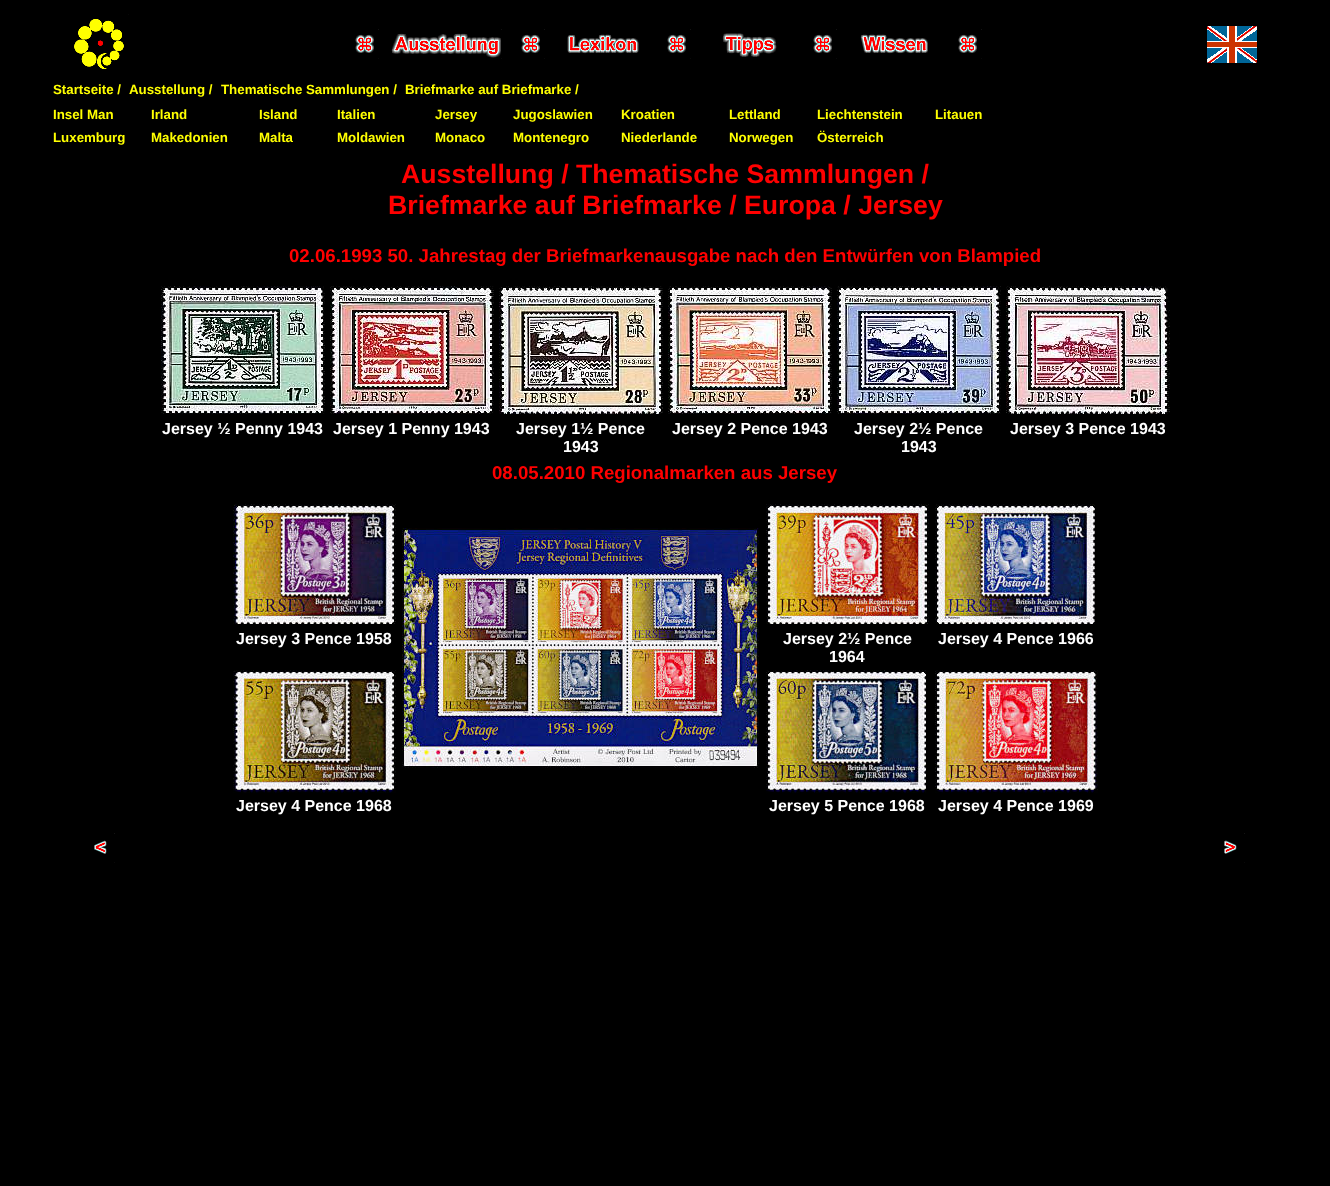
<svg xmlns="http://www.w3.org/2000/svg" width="1330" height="1186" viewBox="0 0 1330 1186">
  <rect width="100%" height="100%" fill="#000000"/>
  <image x="74" y="14" width="55" height="55" href="img1.png"/>
  <image x="355" y="29" width="24" height="30" href="img2.png"/>
  <image x="391" y="29" width="111" height="30" href="img3.png"/>
  <image x="521" y="29" width="24" height="30" href="img2.png"/>
  <image x="567" y="34" width="72" height="20" href="img4.png"/>
  <image x="667" y="29" width="24" height="30" href="img2.png"/>
  <image x="722" y="33" width="55" height="24" href="img5.png"/>
  <image x="813" y="29" width="24" height="30" href="img2.png"/>
  <image x="860" y="34" width="68" height="20" href="img6.png"/>
  <image x="958" y="29" width="24" height="30" href="img2.png"/>
  <image x="1207" y="26" width="50" height="37" href="img7.png"/>
  <text x="53" y="94" font-family="Liberation Sans" font-size="13.3" font-weight="bold" fill="#ffff00">Startseite /</text>
  <text x="129" y="94" font-family="Liberation Sans" font-size="13.3" font-weight="bold" fill="#ffff00">Ausstellung /</text>
  <text x="221" y="94" font-family="Liberation Sans" font-size="13.3" font-weight="bold" fill="#ffff00">Thematische Sammlungen /</text>
  <text x="405" y="94" font-family="Liberation Sans" font-size="13.3" font-weight="bold" fill="#ffff00">Briefmarke auf Briefmarke /</text>
  <text x="53" y="119" font-family="Liberation Sans" font-size="13.3" font-weight="bold" fill="#ffff00">Insel Man</text>
  <text x="151" y="119" font-family="Liberation Sans" font-size="13.3" font-weight="bold" fill="#ffff00">Irland</text>
  <text x="259" y="119" font-family="Liberation Sans" font-size="13.3" font-weight="bold" fill="#ffff00">Island</text>
  <text x="337" y="119" font-family="Liberation Sans" font-size="13.3" font-weight="bold" fill="#ffff00">Italien</text>
  <text x="435" y="119" font-family="Liberation Sans" font-size="13.3" font-weight="bold" fill="#ffff00">Jersey</text>
  <text x="513" y="119" font-family="Liberation Sans" font-size="13.3" font-weight="bold" fill="#ffff00">Jugoslawien</text>
  <text x="621" y="119" font-family="Liberation Sans" font-size="13.3" font-weight="bold" fill="#ffff00">Kroatien</text>
  <text x="729" y="119" font-family="Liberation Sans" font-size="13.3" font-weight="bold" fill="#ffff00">Lettland</text>
  <text x="817" y="119" font-family="Liberation Sans" font-size="13.3" font-weight="bold" fill="#ffff00">Liechtenstein</text>
  <text x="935" y="119" font-family="Liberation Sans" font-size="13.3" font-weight="bold" fill="#ffff00">Litauen</text>
  <text x="53" y="142" font-family="Liberation Sans" font-size="13.3" font-weight="bold" fill="#ffff00">Luxemburg</text>
  <text x="151" y="142" font-family="Liberation Sans" font-size="13.3" font-weight="bold" fill="#ffff00">Makedonien</text>
  <text x="259" y="142" font-family="Liberation Sans" font-size="13.3" font-weight="bold" fill="#ffff00">Malta</text>
  <text x="337" y="142" font-family="Liberation Sans" font-size="13.3" font-weight="bold" fill="#ffff00">Moldawien</text>
  <text x="435" y="142" font-family="Liberation Sans" font-size="13.3" font-weight="bold" fill="#ffff00">Monaco</text>
  <text x="513" y="142" font-family="Liberation Sans" font-size="13.3" font-weight="bold" fill="#ffff00">Montenegro</text>
  <text x="621" y="142" font-family="Liberation Sans" font-size="13.3" font-weight="bold" fill="#ffff00">Niederlande</text>
  <text x="729" y="142" font-family="Liberation Sans" font-size="13.3" font-weight="bold" fill="#ffff00">Norwegen</text>
  <text x="817" y="142" font-family="Liberation Sans" font-size="13.3" font-weight="bold" fill="#ffff00">Österreich</text>
  <text x="401" y="183" font-family="Liberation Sans" font-size="26.7" font-weight="bold" fill="#ff0000">Ausstellung / Thematische Sammlungen /</text>
  <text x="388" y="214" font-family="Liberation Sans" font-size="26.7" font-weight="bold" fill="#ff0000">Briefmarke auf Briefmarke / Europa / Jersey</text>
  <text x="289" y="262" font-family="Liberation Sans" font-size="18.65" font-weight="bold" fill="#ff0000">02.06.1993 50. Jahrestag der Briefmarkenausgabe nach den Entwürfen von Blampied</text>
  <image x="161" y="286" width="164" height="128" href="img8.png"/>
  <image x="330" y="286" width="164" height="128" href="img9.png"/>
  <image x="499" y="286" width="164" height="128" href="img10.png"/>
  <image x="668" y="286" width="164" height="128" href="img11.png"/>
  <image x="837" y="286" width="164" height="128" href="img12.png"/>
  <image x="1006" y="286" width="164" height="128" href="img13.png"/>
  <text x="162" y="434" font-family="Liberation Sans" font-size="16" font-weight="bold" fill="#ffffff">Jersey ½ Penny 1943</text>
  <text x="333" y="434" font-family="Liberation Sans" font-size="16" font-weight="bold" fill="#ffffff">Jersey 1 Penny 1943</text>
  <text x="516" y="434" font-family="Liberation Sans" font-size="16" font-weight="bold" fill="#ffffff">Jersey 1½ Pence</text>
  <text x="563" y="452" font-family="Liberation Sans" font-size="16" font-weight="bold" fill="#ffffff">1943</text>
  <text x="672" y="434" font-family="Liberation Sans" font-size="16" font-weight="bold" fill="#ffffff">Jersey 2 Pence 1943</text>
  <text x="854" y="434" font-family="Liberation Sans" font-size="16" font-weight="bold" fill="#ffffff">Jersey 2½ Pence</text>
  <text x="901" y="452" font-family="Liberation Sans" font-size="16" font-weight="bold" fill="#ffffff">1943</text>
  <text x="1010" y="434" font-family="Liberation Sans" font-size="16" font-weight="bold" fill="#ffffff">Jersey 3 Pence 1943</text>
  <text x="492" y="479" font-family="Liberation Sans" font-size="18.65" font-weight="bold" fill="#ff0000">08.05.2010 Regionalmarken aus Jersey</text>
  <image x="233" y="504" width="163" height="120" href="img14.png"/>
  <image x="402" y="528" width="357" height="240" href="img15.png"/>
  <image x="766" y="504" width="163" height="120" href="img16.png"/>
  <image x="935" y="504" width="160" height="120" href="img17.png"/>
  <text x="236" y="644" font-family="Liberation Sans" font-size="16" font-weight="bold" fill="#ffffff">Jersey 3 Pence 1958</text>
  <text x="783" y="644" font-family="Liberation Sans" font-size="16" font-weight="bold" fill="#ffffff">Jersey 2½ Pence</text>
  <text x="829" y="662" font-family="Liberation Sans" font-size="16" font-weight="bold" fill="#ffffff">1964</text>
  <text x="938" y="644" font-family="Liberation Sans" font-size="16" font-weight="bold" fill="#ffffff">Jersey 4 Pence 1966</text>
  <image x="233" y="670" width="163" height="123" href="img18.png"/>
  <image x="766" y="670" width="160" height="123" href="img19.png"/>
  <image x="935" y="670" width="163" height="123" href="img20.png"/>
  <text x="236" y="811" font-family="Liberation Sans" font-size="16" font-weight="bold" fill="#ffffff">Jersey 4 Pence 1968</text>
  <text x="769" y="811" font-family="Liberation Sans" font-size="16" font-weight="bold" fill="#ffffff">Jersey 5 Pence 1968</text>
  <text x="938" y="811" font-family="Liberation Sans" font-size="16" font-weight="bold" fill="#ffffff">Jersey 4 Pence 1969</text>
  <image x="94" y="833" width="21" height="30" href="img21.png"/>
  <image x="1224" y="833" width="21" height="30" href="img22.png"/>
</svg>
